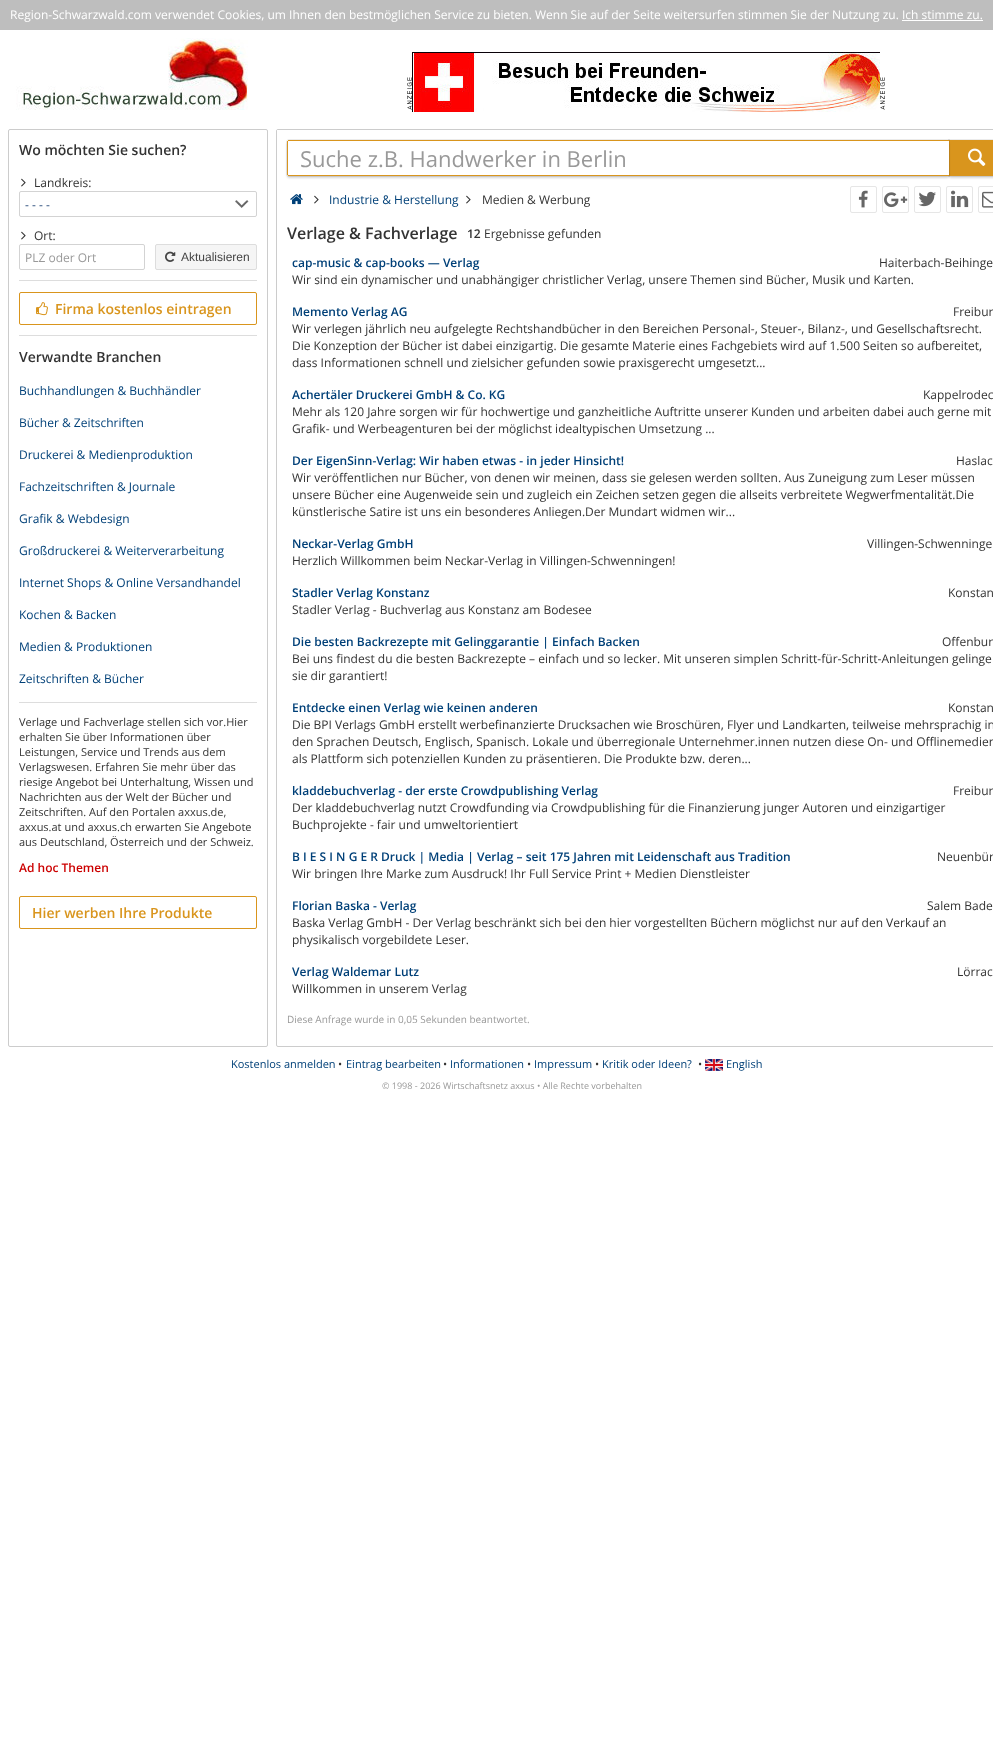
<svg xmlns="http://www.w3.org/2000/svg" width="993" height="1761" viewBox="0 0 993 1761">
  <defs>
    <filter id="blur1" x="-50%" y="-200%" width="200%" height="500%"><feGaussianBlur stdDeviation="1"/></filter>
  </defs>
  <rect width="100%" height="100%" fill="#ffffff"/>
  <rect x="0" y="0" width="993" height="30" fill="#bebebe"/>
  <text x="10" y="19" font-family="Open Sans" font-size="12" fill="#ffffff">Region-Schwarzwald.com verwendet Cookies, um Ihnen den bestmöglichen Service zu bieten. Wenn Sie auf der Seite weitersurfen stimmen Sie der Nutzung zu.</text>
  <text x="902" y="19" font-family="Open Sans" font-size="12" fill="#ffffff">Ich stimme zu.</text>
  <rect x="902" y="20" width="81" height="1" fill="#ffffff"/>
  <image x="16" y="38" width="232" height="72" href="img1.png"/>
  <image x="407" y="77" width="5" height="33" href="img2.png"/>
  <image x="412" y="52" width="468" height="60" href="img3.png"/>
  <image x="880" y="77" width="5" height="33" href="img2.png"/>
  <rect x="8.5" y="129.5" width="259" height="917" rx="1.5" fill="none" stroke="#cccccc"/>
  <text x="19" y="155" font-family="Open Sans" font-size="14" font-weight="600" fill="#333333">Wo möchten Sie suchen?</text>
  <image x="21" y="178" width="5" height="9" href="img4.png"/>
  <text x="34" y="187" font-family="Open Sans" font-size="12" fill="#333333">Landkreis:</text>
  <image x="235" y="200" width="14" height="8" href="img5.png"/>
  <rect x="19.5" y="191.5" width="237" height="25" rx="1.5" fill="none" stroke="#d3d3d3"/>
  <text x="25" y="209" font-family="Open Sans" font-size="12" fill="#204475">- - - -</text>
  <image x="21" y="231" width="5" height="9" href="img4.png"/>
  <text x="34" y="240" font-family="Open Sans" font-size="12" fill="#333333">Ort:</text>
  <rect x="19.5" y="244.5" width="125" height="25" rx="1.5" fill="none" stroke="#d3d3d3"/>
  <text x="25" y="262" font-family="Open Sans" font-size="12" fill="#999999">PLZ oder Ort</text>
  <rect x="155.5" y="244.5" width="101" height="25" rx="1.5" fill="#f5f5f5" stroke="#dddddd"/>
  <image x="165" y="251" width="11" height="11" href="img6.png"/>
  <text x="181" y="261" font-family="Liberation Sans" font-size="12" fill="#444444">Aktualisieren</text>
  <rect x="19" y="280" width="238" height="1" fill="#dddddd"/>
  <rect x="19.5" y="292.5" width="237" height="32" rx="1.5" fill="none" stroke="#d9951d"/>
  <image x="36" y="302" width="12" height="14" href="img7.png"/>
  <text x="55" y="314" font-family="Open Sans" font-size="14" font-weight="600" fill="#d9951d">Firma kostenlos eintragen</text>
  <rect x="19" y="335" width="238" height="1" fill="#dddddd"/>
  <text x="19" y="362" font-family="Open Sans" font-size="14" font-weight="600" fill="#333333">Verwandte Branchen</text>
  <text x="19" y="395" font-family="Open Sans" font-size="12" fill="#004078">Buchhandlungen &amp; Buchhändler</text>
  <text x="19" y="427" font-family="Open Sans" font-size="12" fill="#004078">Bücher &amp; Zeitschriften</text>
  <text x="19" y="459" font-family="Open Sans" font-size="12" fill="#004078">Druckerei &amp; Medienproduktion</text>
  <text x="19" y="491" font-family="Open Sans" font-size="12" fill="#004078">Fachzeitschriften &amp; Journale</text>
  <text x="19" y="523" font-family="Open Sans" font-size="12" fill="#004078">Grafik &amp; Webdesign</text>
  <text x="19" y="555" font-family="Open Sans" font-size="12" fill="#004078">Großdruckerei &amp; Weiterverarbeitung</text>
  <text x="19" y="587" font-family="Open Sans" font-size="12" fill="#004078">Internet Shops &amp; Online Versandhandel</text>
  <text x="19" y="619" font-family="Open Sans" font-size="12" fill="#004078">Kochen &amp; Backen</text>
  <text x="19" y="651" font-family="Open Sans" font-size="12" fill="#004078">Medien &amp; Produktionen</text>
  <text x="19" y="683" font-family="Open Sans" font-size="12" fill="#004078">Zeitschriften &amp; Bücher</text>
  <rect x="19" y="702" width="238" height="1" fill="#dddddd"/>
  <text x="19" y="726" font-family="Open Sans" font-size="11" fill="#333333">Verlage und Fachverlage stellen sich vor.Hier</text>
  <text x="19" y="741" font-family="Open Sans" font-size="11" fill="#333333">erhalten Sie über Informationen über</text>
  <text x="19" y="756" font-family="Open Sans" font-size="11" fill="#333333">Leistungen, Service und Trends aus dem</text>
  <text x="19" y="771" font-family="Open Sans" font-size="11" fill="#333333">Verlagswesen. Erfahren Sie mehr über das</text>
  <text x="19" y="786" font-family="Open Sans" font-size="11" fill="#333333">riesige Angebot bei Unterhaltung, Wissen und</text>
  <text x="19" y="801" font-family="Open Sans" font-size="11" fill="#333333">Nachrichten aus der Welt der Bücher und</text>
  <text x="19" y="816" font-family="Open Sans" font-size="11" fill="#333333">Zeitschriften. Auf den Portalen axxus.de,</text>
  <text x="19" y="831" font-family="Open Sans" font-size="11" fill="#333333">axxus.at und axxus.ch erwarten Sie Angebote</text>
  <text x="19" y="846" font-family="Open Sans" font-size="11" fill="#333333">aus Deutschland, Österreich und der Schweiz.</text>
  <text x="19" y="872" font-family="Open Sans" font-size="12" font-weight="600" fill="#cc0000">Ad hoc Themen</text>
  <rect x="19.5" y="896.5" width="237" height="32" rx="1.5" fill="none" stroke="#d9951d"/>
  <text x="32" y="918" font-family="Open Sans" font-size="14" font-weight="600" fill="#d9951d">Hier werben Ihre Produkte</text>
  <rect x="276.5" y="129.5" width="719" height="917" rx="1.5" fill="none" stroke="#cccccc"/>
  <rect x="277" y="130" width="1" height="1" fill="#ffffff"/>
  <rect x="948.5" y="139.5" width="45" height="37" fill="none" stroke="#ebebeb"/>
  <rect x="949" y="142" width="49" height="36" rx="2" fill="#000000" fill-opacity="0.16" filter="url(#blur1)"/>
  <rect x="949" y="140" width="44" height="36" fill="#d9951d"/>
  <path d="M289 139.5H949.5V176.5H289C287.5 176.5 286.5 175.5 286.5 174V142C286.5 140.5 287.5 139.5 289 139.5Z" fill="none" stroke="#000000" stroke-opacity="0.08"/>
  <rect x="287" y="142" width="662" height="36" rx="2" fill="#000000" fill-opacity="0.16" filter="url(#blur1)"/>
  <path d="M289 141H949V175H289C288.5 175 288 174.5 288 174V142C288 141.5 288.5 141 289 141Z" fill="#ffffff"/>
  <rect x="288" y="140" width="661" height="1" fill="#d9951d"/>
  <rect x="288" y="175" width="661" height="1" fill="#d9951d"/>
  <rect x="287" y="141" width="1" height="34" fill="#d9951d"/>
  <text x="300" y="167" font-family="Open Sans" font-size="22" fill="#999999">Suche z.B. Handwerker in Berlin</text>
  <image x="968" y="148" width="18" height="18" href="img8.png"/>
  <image x="290" y="194" width="13" height="11" href="img9.png"/>
  <image x="314" y="195" width="5" height="9" href="img4.png"/>
  <text x="329" y="204" font-family="Open Sans" font-size="12" fill="#004078">Industrie &amp; Herstellung</text>
  <image x="466" y="195" width="5" height="9" href="img4.png"/>
  <text x="482" y="204" font-family="Open Sans" font-size="12" fill="#333333">Medien &amp; Werbung</text>
  <rect x="850.5" y="186.5" width="26" height="26" rx="1.5" fill="none" stroke="#e6e6e6"/>
  <image x="858" y="190" width="10" height="18" href="img10.png"/>
  <rect x="882.5" y="186.5" width="26" height="26" rx="1.5" fill="none" stroke="#e6e6e6"/>
  <image x="884" y="192" width="24" height="16" href="img11.png"/>
  <rect x="914.5" y="186.5" width="26" height="26" rx="1.5" fill="none" stroke="#e6e6e6"/>
  <image x="918" y="191" width="18" height="16" href="img12.png"/>
  <rect x="946.5" y="186.5" width="26" height="26" rx="1.5" fill="none" stroke="#e6e6e6"/>
  <image x="951" y="190" width="18" height="18" href="img13.png"/>
  <rect x="978.5" y="186.5" width="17" height="26" rx="1.5" fill="none" stroke="#e6e6e6"/>
  <image x="982" y="191" width="11" height="17" href="img14.png"/>
  <text x="287" y="239" font-family="Open Sans" font-size="16" font-weight="600" fill="#333333">Verlage &amp; Fachverlage</text>
  <text x="467" y="238" font-family="Open Sans" font-size="12" font-weight="600" fill="#333333">12</text>
  <text x="484" y="238" font-family="Open Sans" font-size="12" fill="#333333">Ergebnisse gefunden</text>
  <text x="292" y="267" font-family="Open Sans" font-size="12" font-weight="600" fill="#004078">cap-music &amp; cap-books — Verlag</text>
  <text x="879" y="267" font-family="Open Sans" font-size="12" fill="#333333">Haiterbach-Beihinge</text>
  <text x="292" y="284" font-family="Open Sans" font-size="12" fill="#333333">Wir sind ein dynamischer und unabhängiger christlicher Verlag, unsere Themen sind Bücher, Musik und Karten.</text>
  <text x="292" y="316" font-family="Open Sans" font-size="12" font-weight="600" fill="#004078">Memento Verlag AG</text>
  <text x="953" y="316" font-family="Open Sans" font-size="12" fill="#333333">Freibur</text>
  <text x="292" y="333" font-family="Open Sans" font-size="12" fill="#333333">Wir verlegen jährlich neu aufgelegte Rechtshandbücher in den Bereichen Personal-, Steuer-, Bilanz-, und Gesellschaftsrecht.</text>
  <text x="292" y="350" font-family="Open Sans" font-size="12" fill="#333333">Die Konzeption der Bücher ist dabei einzigartig. Die gesamte Materie eines Fachgebiets wird auf 1.500 Seiten so aufbereitet,</text>
  <text x="292" y="367" font-family="Open Sans" font-size="12" fill="#333333">dass Informationen schnell und zielsicher gefunden sowie praxisgerecht umgesetzt...</text>
  <text x="292" y="399" font-family="Open Sans" font-size="12" font-weight="600" fill="#004078">Achertäler Druckerei GmbH &amp; Co. KG</text>
  <text x="923" y="399" font-family="Open Sans" font-size="12" fill="#333333">Kappelrodec</text>
  <text x="292" y="416" font-family="Open Sans" font-size="12" fill="#333333">Mehr als 120 Jahre sorgen wir für hochwertige und ganzheitliche Auftritte unserer Kunden und arbeiten dabei auch gerne mit</text>
  <text x="292" y="433" font-family="Open Sans" font-size="12" fill="#333333">Grafik- und Werbeagenturen bei der möglichst idealtypischen Umsetzung ...</text>
  <text x="292" y="465" font-family="Open Sans" font-size="12" font-weight="600" fill="#004078">Der EigenSinn-Verlag: Wir haben etwas - in jeder Hinsicht!</text>
  <text x="956" y="465" font-family="Open Sans" font-size="12" fill="#333333">Haslac</text>
  <text x="292" y="482" font-family="Open Sans" font-size="12" fill="#333333">Wir veröffentlichen nur Bücher, von denen wir meinen, dass sie gelesen werden sollten. Aus Zuneigung zum Leser müssen</text>
  <text x="292" y="499" font-family="Open Sans" font-size="12" fill="#333333">unsere Bücher eine Augenweide sein und zugleich ein Zeichen setzen gegen die allseits verbreitete Wegwerfmentalität.Die</text>
  <text x="292" y="516" font-family="Open Sans" font-size="12" fill="#333333">künstlerische Satire ist uns ein besonderes Anliegen.Der Mundart widmen wir...</text>
  <text x="292" y="548" font-family="Open Sans" font-size="12" font-weight="600" fill="#004078">Neckar-Verlag GmbH</text>
  <text x="867" y="548" font-family="Open Sans" font-size="12" fill="#333333">Villingen-Schwenninge</text>
  <text x="292" y="565" font-family="Open Sans" font-size="12" fill="#333333">Herzlich Willkommen beim Neckar-Verlag in Villingen-Schwenningen!</text>
  <text x="292" y="597" font-family="Open Sans" font-size="12" font-weight="600" fill="#004078">Stadler Verlag Konstanz</text>
  <text x="948" y="597" font-family="Open Sans" font-size="12" fill="#333333">Konstan</text>
  <text x="292" y="614" font-family="Open Sans" font-size="12" fill="#333333">Stadler Verlag - Buchverlag aus Konstanz am Bodesee</text>
  <text x="292" y="646" font-family="Open Sans" font-size="12" font-weight="600" fill="#004078">Die besten Backrezepte mit Gelinggarantie | Einfach Backen</text>
  <text x="942" y="646" font-family="Open Sans" font-size="12" fill="#333333">Offenbur</text>
  <text x="292" y="663" font-family="Open Sans" font-size="12" fill="#333333">Bei uns findest du die besten Backrezepte – einfach und so lecker. Mit unseren simplen Schritt-für-Schritt-Anleitungen gelinge</text>
  <text x="292" y="680" font-family="Open Sans" font-size="12" fill="#333333">sie dir garantiert!</text>
  <text x="292" y="712" font-family="Open Sans" font-size="12" font-weight="600" fill="#004078">Entdecke einen Verlag wie keinen anderen</text>
  <text x="948" y="712" font-family="Open Sans" font-size="12" fill="#333333">Konstan</text>
  <text x="292" y="729" font-family="Open Sans" font-size="12" fill="#333333">Die BPI Verlags GmbH erstellt werbefinanzierte Drucksachen wie Broschüren, Flyer und Landkarten, teilweise mehrsprachig in</text>
  <text x="292" y="746" font-family="Open Sans" font-size="12" fill="#333333">den Sprachen Deutsch, Englisch, Spanisch. Lokale und überregionale Unternehmer.innen nutzen diese On- und Offlinemedien</text>
  <text x="292" y="763" font-family="Open Sans" font-size="12" fill="#333333">als Plattform sich potenziellen Kunden zu präsentieren. Die Produkte bzw. deren...</text>
  <text x="292" y="795" font-family="Open Sans" font-size="12" font-weight="600" fill="#004078">kladdebuchverlag - der erste Crowdpublishing Verlag</text>
  <text x="953" y="795" font-family="Open Sans" font-size="12" fill="#333333">Freibur</text>
  <text x="292" y="812" font-family="Open Sans" font-size="12" fill="#333333">Der kladdebuchverlag nutzt Crowdfunding via Crowdpublishing für die Finanzierung junger Autoren und einzigartiger</text>
  <text x="292" y="829" font-family="Open Sans" font-size="12" fill="#333333">Buchprojekte - fair und umweltorientiert</text>
  <text x="292" y="861" font-family="Open Sans" font-size="12" font-weight="600" fill="#004078">B I E S I N G E R Druck | Media | Verlag – seit 175 Jahren mit Leidenschaft aus Tradition</text>
  <text x="937" y="861" font-family="Open Sans" font-size="12" fill="#333333">Neuenbür</text>
  <text x="292" y="878" font-family="Open Sans" font-size="12" fill="#333333">Wir bringen Ihre Marke zum Ausdruck! Ihr Full Service Print + Medien Dienstleister</text>
  <text x="292" y="910" font-family="Open Sans" font-size="12" font-weight="600" fill="#004078">Florian Baska - Verlag</text>
  <text x="927" y="910" font-family="Open Sans" font-size="12" fill="#333333">Salem Bade</text>
  <text x="292" y="927" font-family="Open Sans" font-size="12" fill="#333333">Baska Verlag GmbH - Der Verlag beschränkt sich bei den hier vorgestellten Büchern möglichst nur auf den Verkauf an</text>
  <text x="292" y="944" font-family="Open Sans" font-size="12" fill="#333333">physikalisch vorgebildete Leser.</text>
  <text x="292" y="976" font-family="Open Sans" font-size="12" font-weight="600" fill="#004078">Verlag Waldemar Lutz</text>
  <text x="957" y="976" font-family="Open Sans" font-size="12" fill="#333333">Lörrac</text>
  <text x="292" y="993" font-family="Open Sans" font-size="12" fill="#333333">Willkommen in unserem Verlag</text>
  <text x="287" y="1023" font-family="Open Sans" font-size="10" fill="#999999">Diese Anfrage wurde in 0,05 Sekunden beantwortet.</text>
  <text x="231" y="1068" font-family="Open Sans" font-size="11" fill="#004078">Kostenlos anmelden</text>
  <text x="338" y="1068" font-family="Open Sans" font-size="11" fill="#333333">•</text>
  <text x="346" y="1068" font-family="Open Sans" font-size="11" fill="#004078">Eintrag bearbeiten</text>
  <text x="443" y="1068" font-family="Open Sans" font-size="11" fill="#333333">•</text>
  <text x="450" y="1068" font-family="Open Sans" font-size="11" fill="#004078">Informationen</text>
  <text x="527" y="1068" font-family="Open Sans" font-size="11" fill="#333333">•</text>
  <text x="534" y="1068" font-family="Open Sans" font-size="11" fill="#004078">Impressum</text>
  <text x="595" y="1068" font-family="Open Sans" font-size="11" fill="#333333">•</text>
  <text x="602" y="1068" font-family="Open Sans" font-size="11" fill="#004078">Kritik oder Ideen?</text>
  <text x="698" y="1068" font-family="Open Sans" font-size="11" fill="#333333">•</text>
  <image x="705" y="1059" width="18" height="12" href="img15.png"/>
  <text x="726" y="1068" font-family="Open Sans" font-size="11" fill="#004078">English</text>
  <text x="382" y="1089" font-family="Open Sans" font-size="9" fill="#999999">© 1998 - 2026 Wirtschaftsnetz axxus • Alle Rechte vorbehalten</text>
</svg>
